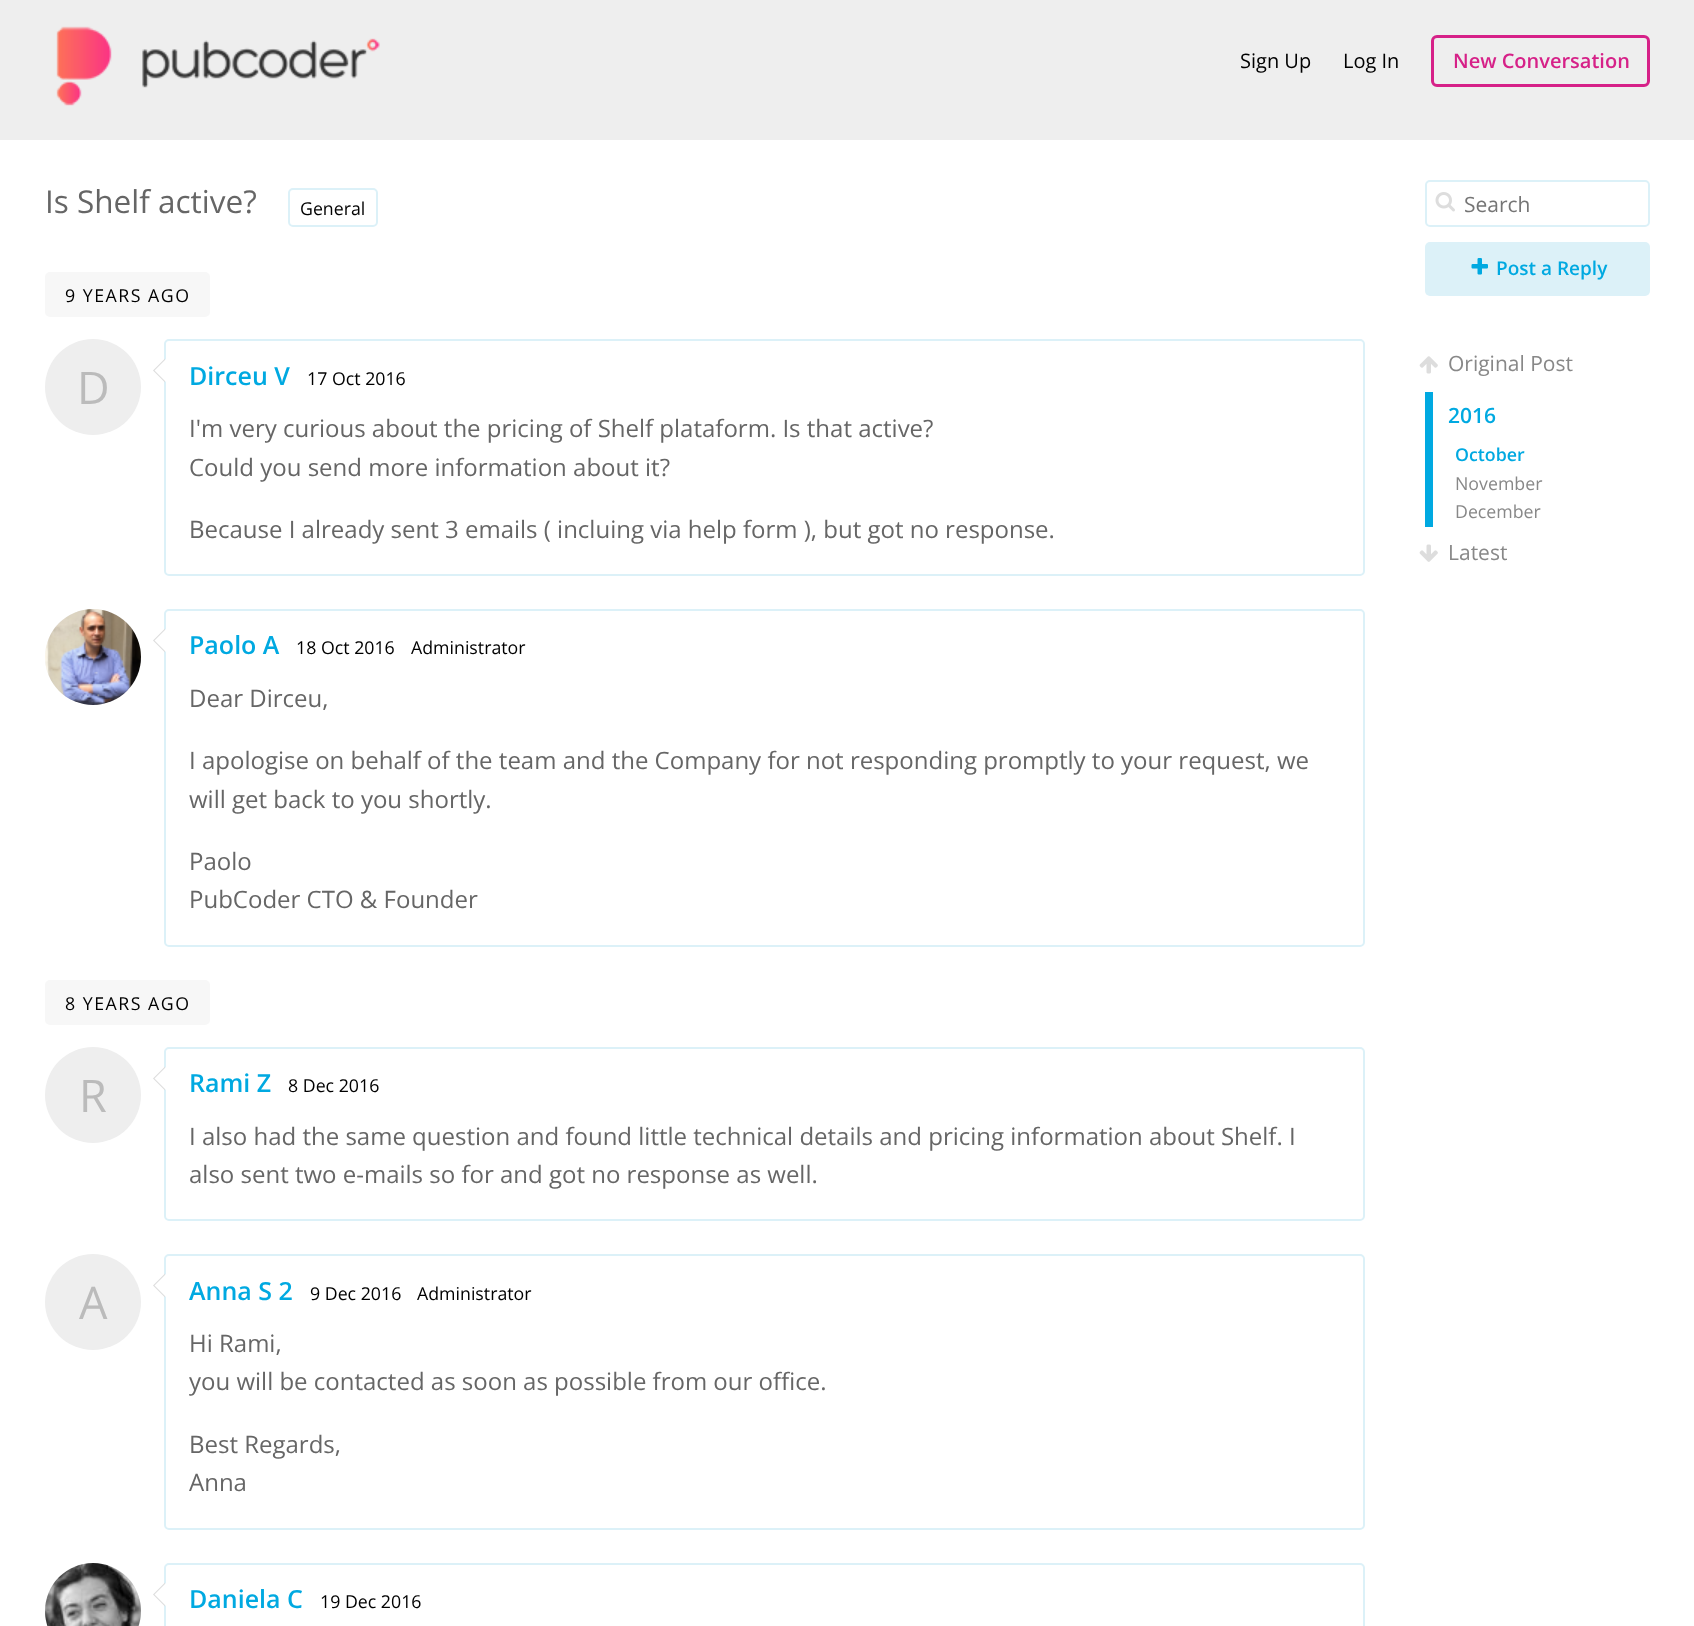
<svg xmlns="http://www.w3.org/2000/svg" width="1694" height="1626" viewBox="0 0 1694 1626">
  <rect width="100%" height="100%" fill="#ffffff"/>
  <rect x="0" y="0" width="1694" height="140" fill="#eeeeee"/>
  <image x="56" y="26" width="324" height="80" href="img1.png"/>
  <text x="1240" y="68" font-family="Open Sans" font-size="20" fill="#000000">Sign Up</text>
  <text x="1343" y="68" font-family="Open Sans" font-size="20" fill="#000000">Log In</text>
  <rect x="1432.5" y="36.5" width="216" height="49" rx="4.5" fill="none" stroke="#d62188" stroke-width="3"/>
  <text x="1453" y="68" font-family="Open Sans" font-size="20" font-weight="600" fill="#d62188">New Conversation</text>
  <text x="45" y="213" font-family="Open Sans" font-size="31.5" fill="#666666">Is Shelf active?</text>
  <rect x="289" y="189" width="88" height="37" rx="4" fill="none" stroke="#dcf1f8" stroke-width="2"/>
  <text x="300" y="215" font-family="Open Sans" font-size="17.75" fill="#000000">General</text>
  <rect x="1426" y="181" width="223" height="45" rx="4" fill="none" stroke="#dcf1f8" stroke-width="2"/>
  <image x="1435" y="192" width="20" height="20" href="img2.png"/>
  <text x="1464" y="212" font-family="Open Sans" font-size="21" fill="#757575">Search</text>
  <rect x="1425" y="242" width="225" height="54" rx="5" fill="#dcf1f8"/>
  <image x="1471" y="258" width="17" height="17" href="img3.png"/>
  <text x="1496" y="275" font-family="Open Sans" font-size="19" font-weight="600" fill="#00a9e1">Post a Reply</text>
  <image x="1419" y="356" width="19" height="18" href="img4.png"/>
  <text x="1448" y="371" font-family="Open Sans" font-size="21" fill="#888888">Original Post</text>
  <rect x="1425" y="392" width="8" height="135" fill="#00a9e1"/>
  <text x="1448" y="423" font-family="Open Sans" font-size="21" font-weight="600" fill="#00a9e1">2016</text>
  <text x="1455" y="461" font-family="Open Sans" font-size="17.75" font-weight="600" fill="#00a9e1">October</text>
  <text x="1455" y="490" font-family="Open Sans" font-size="17.75" fill="#888888">November</text>
  <text x="1455" y="518" font-family="Open Sans" font-size="17.75" fill="#888888">December</text>
  <image x="1419" y="544" width="19" height="18" href="img5.png"/>
  <text x="1448" y="560" font-family="Open Sans" font-size="21" fill="#888888">Latest</text>
  <rect x="45" y="272" width="165" height="45" rx="5" fill="#f7f7f7"/>
  <text x="65" y="302" font-family="Open Sans" font-size="17.75" letter-spacing="1.5" fill="#000000">9 YEARS AGO</text>
  <circle cx="93" cy="387" r="48" fill="#eeeeee"/>
  <text x="77" y="404" font-family="Open Sans" font-size="45" fill="#bbbbbb">D</text>
  <rect x="165" y="340" width="1199" height="235" rx="4" fill="none" stroke="#dcf1f8" stroke-width="2"/>
  <path d="M165 358.5V382.5L153 370.5Z" fill="#dddddd"/>
  <path d="M166.5 358.5V382.5L154.5 370.5Z" fill="#ffffff"/>
  <text x="189" y="385" font-family="Open Sans" font-size="25" font-weight="600" fill="#00a9e1">Dirceu V</text>
  <text x="307" y="385" font-family="Open Sans" font-size="17.75" fill="#000000">17 Oct 2016</text>
  <text x="189" y="437" font-family="Open Sans" font-size="24" fill="#666666">I'm very curious about the pricing of Shelf plataform. Is that active?</text>
  <text x="189" y="476" font-family="Open Sans" font-size="24" fill="#666666">Could you send more information about it?</text>
  <text x="189" y="538" font-family="Open Sans" font-size="24" fill="#666666">Because I already sent 3 emails ( incluing via help form ), but got no response.</text>
  <circle cx="93" cy="657" r="48" fill="#eeeeee"/>
  <image x="45" y="609" width="96" height="96" href="img6.png"/>
  <rect x="165" y="610" width="1199" height="336" rx="4" fill="none" stroke="#dcf1f8" stroke-width="2"/>
  <path d="M165 628.5V652.5L153 640.5Z" fill="#dddddd"/>
  <path d="M166.5 628.5V652.5L154.5 640.5Z" fill="#ffffff"/>
  <text x="189" y="654" font-family="Open Sans" font-size="25" font-weight="600" fill="#00a9e1">Paolo A</text>
  <text x="296" y="654" font-family="Open Sans" font-size="17.75" fill="#000000">18 Oct 2016</text>
  <text x="411" y="654" font-family="Open Sans" font-size="17.75" fill="#000000">Administrator</text>
  <text x="189" y="707" font-family="Open Sans" font-size="24" fill="#666666">Dear Dirceu,</text>
  <text x="189" y="769" font-family="Open Sans" font-size="24" fill="#666666">I apologise on behalf of the team and the Company for not responding promptly to your request, we</text>
  <text x="189" y="808" font-family="Open Sans" font-size="24" fill="#666666">will get back to you shortly.</text>
  <text x="189" y="870" font-family="Open Sans" font-size="24" fill="#666666">Paolo</text>
  <text x="189" y="908" font-family="Open Sans" font-size="24" fill="#666666">PubCoder CTO &amp; Founder</text>
  <rect x="45" y="980" width="165" height="45" rx="5" fill="#f7f7f7"/>
  <text x="65" y="1010" font-family="Open Sans" font-size="17.75" letter-spacing="1.5" fill="#000000">8 YEARS AGO</text>
  <circle cx="93" cy="1095" r="48" fill="#eeeeee"/>
  <text x="79" y="1112" font-family="Open Sans" font-size="45" fill="#bbbbbb">R</text>
  <rect x="165" y="1048" width="1199" height="172" rx="4" fill="none" stroke="#dcf1f8" stroke-width="2"/>
  <path d="M165 1066.5V1090.5L153 1078.5Z" fill="#dddddd"/>
  <path d="M166.5 1066.5V1090.5L154.5 1078.5Z" fill="#ffffff"/>
  <text x="189" y="1092" font-family="Open Sans" font-size="25" font-weight="600" fill="#00a9e1">Rami Z</text>
  <text x="288" y="1092" font-family="Open Sans" font-size="17.75" fill="#000000">8 Dec 2016</text>
  <text x="189" y="1145" font-family="Open Sans" font-size="24" fill="#666666">I also had the same question and found little technical details and pricing information about Shelf. I</text>
  <text x="189" y="1183" font-family="Open Sans" font-size="24" fill="#666666">also sent two e-mails so for and got no response as well.</text>
  <circle cx="93" cy="1302" r="48" fill="#eeeeee"/>
  <text x="79" y="1319" font-family="Open Sans" font-size="45" fill="#bbbbbb">A</text>
  <rect x="165" y="1255" width="1199" height="274" rx="4" fill="none" stroke="#dcf1f8" stroke-width="2"/>
  <path d="M165 1273.5V1297.5L153 1285.5Z" fill="#dddddd"/>
  <path d="M166.5 1273.5V1297.5L154.5 1285.5Z" fill="#ffffff"/>
  <text x="189" y="1300" font-family="Open Sans" font-size="25" font-weight="600" fill="#00a9e1">Anna S 2</text>
  <text x="310" y="1300" font-family="Open Sans" font-size="17.75" fill="#000000">9 Dec 2016</text>
  <text x="417" y="1300" font-family="Open Sans" font-size="17.75" fill="#000000">Administrator</text>
  <text x="189" y="1352" font-family="Open Sans" font-size="24" fill="#666666">Hi Rami,</text>
  <text x="189" y="1390" font-family="Open Sans" font-size="24" fill="#666666">you will be contacted as soon as possible from our office.</text>
  <text x="189" y="1453" font-family="Open Sans" font-size="24" fill="#666666">Best Regards,</text>
  <text x="189" y="1491" font-family="Open Sans" font-size="24" fill="#666666">Anna</text>
  <circle cx="93" cy="1611" r="48" fill="#eeeeee"/>
  <image x="45" y="1563" width="96" height="63" href="img7.png"/>
  <rect x="165" y="1564" width="1199" height="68" rx="4" fill="none" stroke="#dcf1f8" stroke-width="2"/>
  <path d="M165 1582.5V1606.5L153 1594.5Z" fill="#dddddd"/>
  <path d="M166.5 1582.5V1606.5L154.5 1594.5Z" fill="#ffffff"/>
  <text x="189" y="1608" font-family="Open Sans" font-size="25" font-weight="600" fill="#00a9e1">Daniela C</text>
  <text x="320" y="1608" font-family="Open Sans" font-size="17.75" fill="#000000">19 Dec 2016</text>
</svg>
